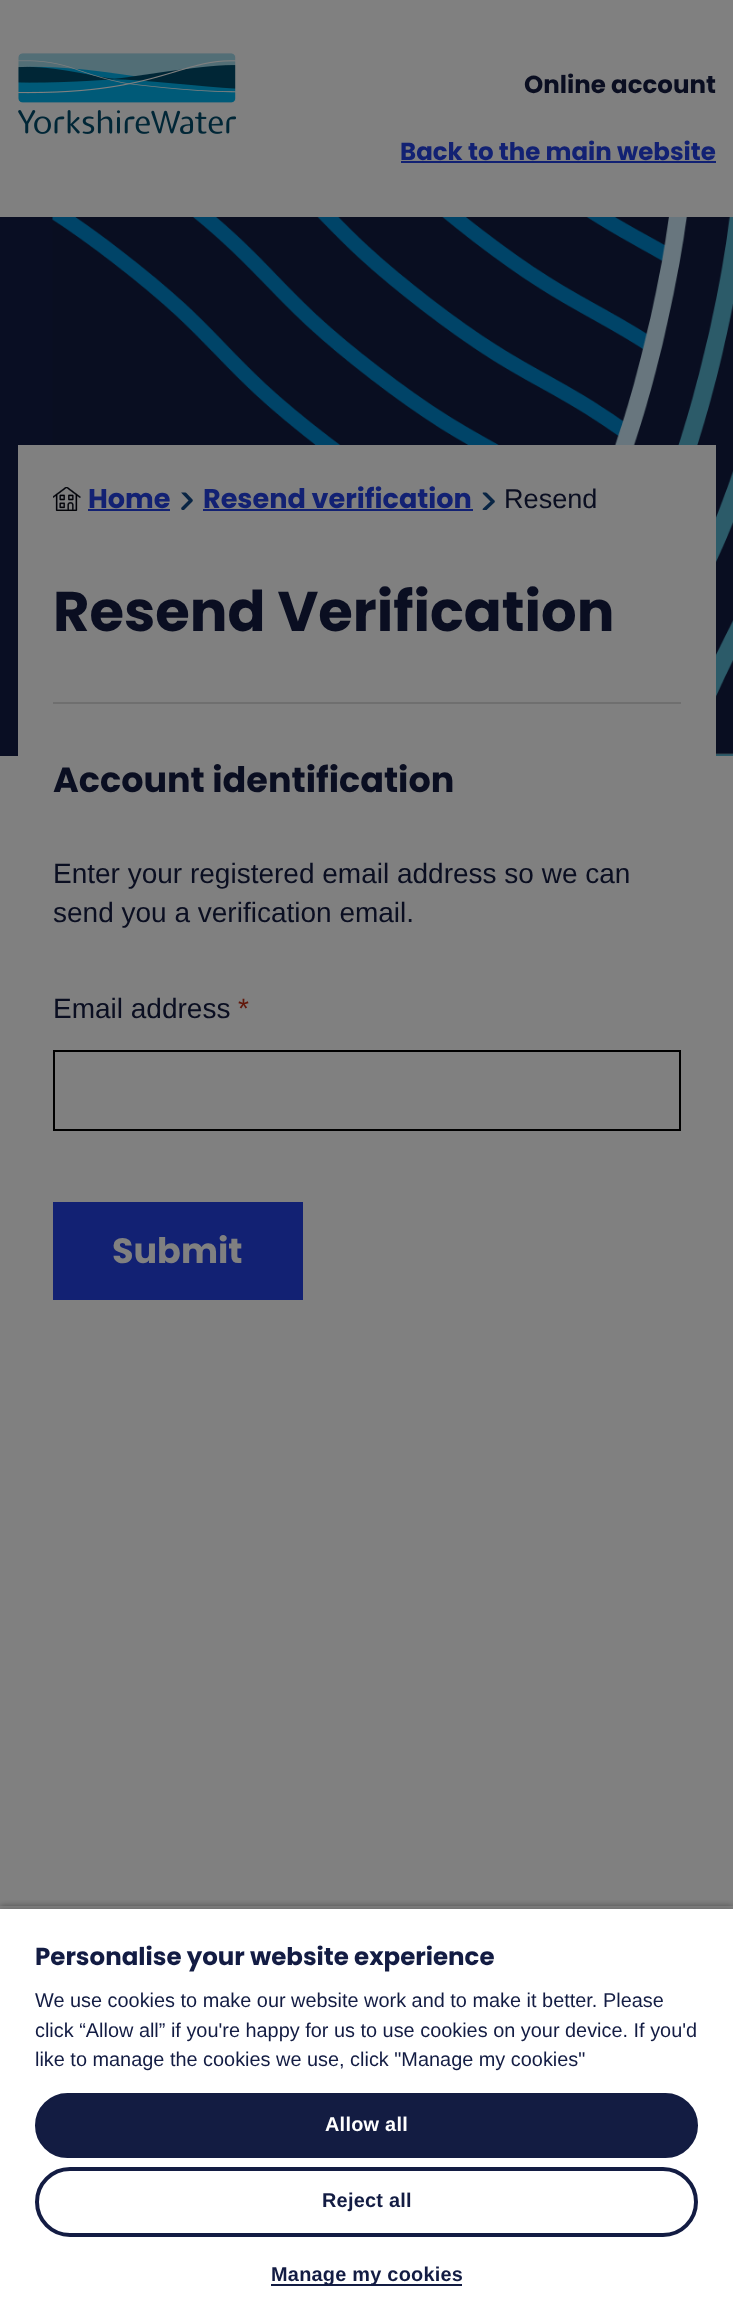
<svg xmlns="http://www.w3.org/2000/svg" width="733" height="2315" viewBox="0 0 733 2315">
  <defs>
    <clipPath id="clip1"><path d="M195 492.5V510H177.5V492.5Z"/></clipPath>
    <clipPath id="clip2"><path d="M497 492.5V510H479.5V492.5Z"/></clipPath>
    <clipPath id="clip3"><rect x="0" y="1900" width="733" height="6"/></clipPath>
    <filter id="blur1" x="-50%" y="-200%" width="200%" height="500%"><feGaussianBlur stdDeviation="3.5"/></filter>
  </defs>
  <rect width="100%" height="100%" fill="#808080"/>
  <image x="18" y="53" width="218" height="81" href="img1.png"/>
  <text x="524" y="93" font-family="Poppins" font-size="24.5" font-weight="bold" fill="#0a0e21">Online account</text>
  <text x="400" y="160" font-family="Poppins" font-size="24.5" font-weight="bold" fill="#122173">Back to the main website</text>
  <rect x="401" y="161" width="315" height="2" fill="#122173"/>
  <rect x="0" y="217" width="53" height="539" fill="#090e23"/>
  <image x="52" y="217" width="681" height="539" href="img2.png"/>
  <rect x="18" y="445" width="698" height="311" fill="#808080"/>
  <image x="53" y="487" width="28" height="24" href="img3.png"/>
  <text x="88" y="508" font-family="Poppins" font-size="27.1" font-weight="bold" fill="#122173">Home</text>
  <rect x="88" y="509" width="82" height="2" fill="#122173"/>
  <g clip-path="url(#clip1)">
    <path d="M183 508.5L191 500.5L183 492" fill="none" stroke="#092544" stroke-width="3.5" stroke-linecap="round" stroke-linejoin="round"/>
  </g>
  <text x="203" y="508" font-family="Poppins" font-size="27.1" font-weight="bold" fill="#122173">Resend verification</text>
  <rect x="203" y="509" width="270" height="2" fill="#122173"/>
  <g clip-path="url(#clip2)">
    <path d="M484.5 509.5L493 501.5L484.5 493" fill="none" stroke="#092544" stroke-width="3.5" stroke-linecap="round" stroke-linejoin="round"/>
  </g>
  <text x="504" y="508" font-family="Liberation Sans" font-size="27.1" fill="#0a0e21">Resend</text>
  <text x="53" y="631" font-family="Poppins" font-size="56" font-weight="bold" fill="#0a0e21">Resend Verification</text>
  <rect x="53" y="702" width="628" height="2" fill="#6f6f6f"/>
  <text x="53" y="792" font-family="Poppins" font-size="35" font-weight="bold" fill="#0a0e21">Account identification</text>
  <text x="53" y="883" font-family="Liberation Sans" font-size="28" fill="#0a0e21">Enter your registered email address so we can</text>
  <text x="53" y="922" font-family="Liberation Sans" font-size="28" fill="#0a0e21">send you a verification email.</text>
  <text x="53" y="1018" font-family="Liberation Sans" font-size="28" fill="#0a0e21">Email address</text>
  <text x="238" y="1018" font-family="Liberation Sans" font-size="28" fill="#61170a">*</text>
  <rect x="54" y="1051" width="626" height="79" fill="none" stroke="#000000" stroke-width="2"/>
  <rect x="53" y="1202" width="250" height="98" fill="#122173"/>
  <text x="112" y="1263" font-family="Poppins" font-size="35" font-weight="bold" fill="#808080">Submit</text>
  <g clip-path="url(#clip3)">
    <rect x="0" y="1906" width="733" height="409" fill="#000000" fill-opacity="0.35" filter="url(#blur1)"/>
  </g>
  <rect x="0" y="1909" width="733" height="406" fill="#000000" fill-opacity="0.2" filter="url(#blur1)"/>
  <rect x="0" y="1909" width="733" height="406" fill="#ffffff"/>
  <text x="35" y="1965" font-family="Poppins" font-size="24.5" font-weight="bold" fill="#131c43">Personalise your website experience</text>
  <text x="35" y="2007" font-family="Liberation Sans" font-size="19.9" fill="#131c43">We use cookies to make our website work and to make it better.</text>
  <text x="603" y="2007" font-family="Liberation Sans" font-size="19.9" fill="#131c43">Please</text>
  <text x="35" y="2037" font-family="Liberation Sans" font-size="19.9" fill="#131c43">click “Allow all” if you're happy for us to use cookies on your device. If you'd</text>
  <text x="35" y="2066" font-family="Liberation Sans" font-size="19.9" fill="#131c43">like to manage the cookies we use, click "Manage my cookies"</text>
  <rect x="36" y="2094" width="661" height="63" rx="31.5" fill="#131c42" stroke="#131c42" stroke-width="2"/>
  <text x="325" y="2131" font-family="Liberation Sans" font-size="19.9" font-weight="bold" letter-spacing="0.25" fill="#ffffff">Allow all</text>
  <rect x="37" y="2169" width="659" height="66" rx="33" fill="none" stroke="#131c43" stroke-width="4"/>
  <text x="322" y="2207" font-family="Liberation Sans" font-size="19.9" font-weight="bold" letter-spacing="0.25" fill="#131c43">Reject all</text>
  <rect x="271" y="2284" width="191" height="2" fill="#131c42"/>
  <text x="271" y="2281" font-family="Liberation Sans" font-size="19.9" font-weight="bold" letter-spacing="0.25" fill="#131c43">Manage my cookies</text>
</svg>
